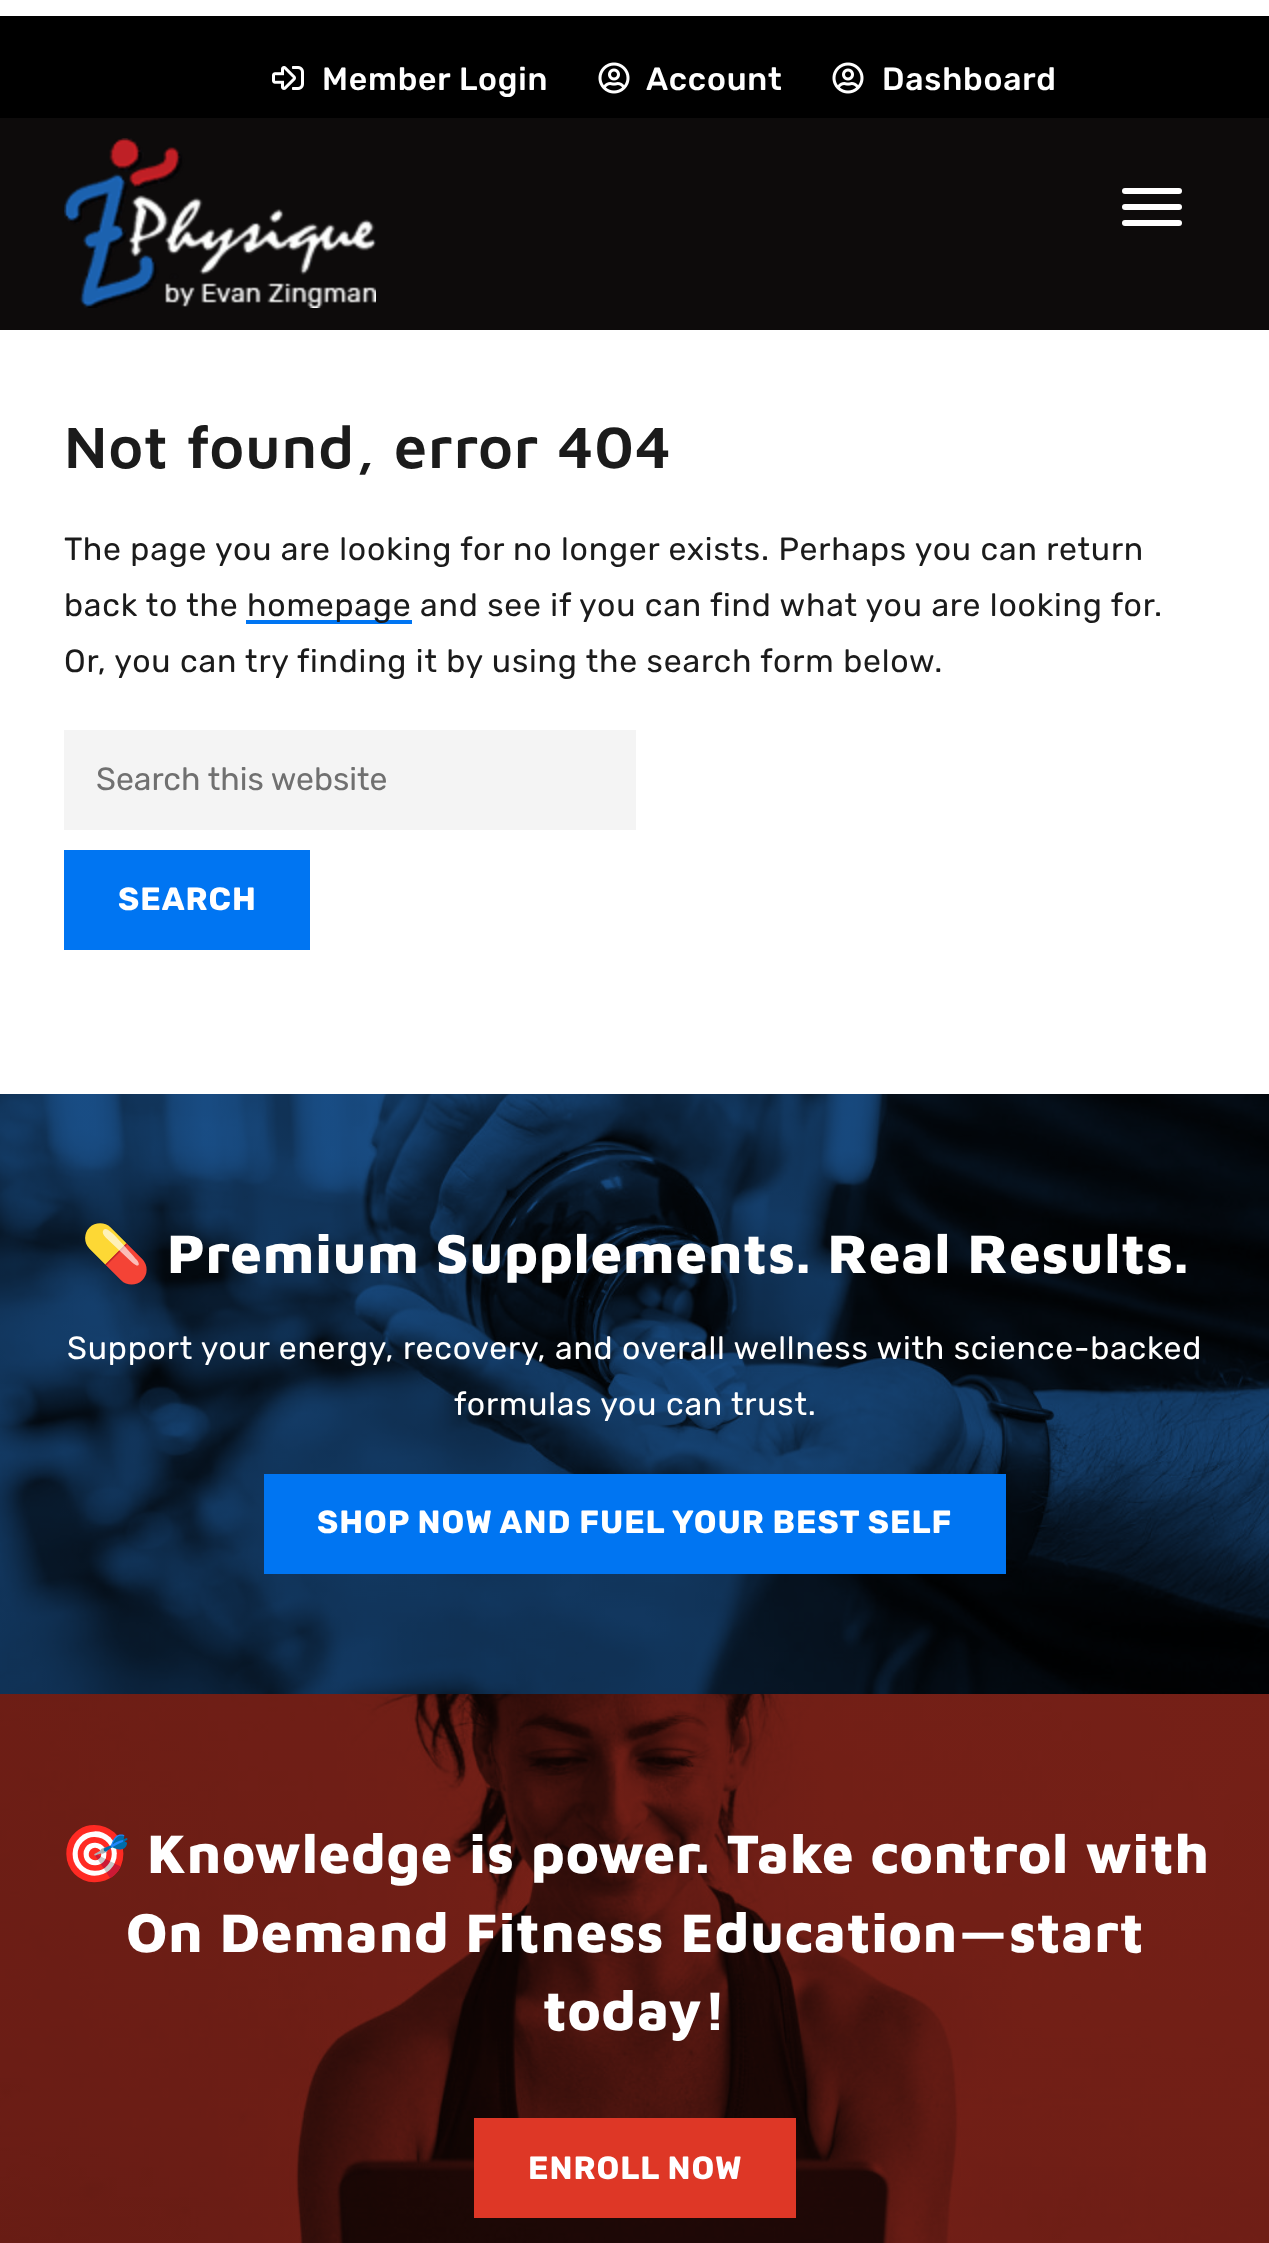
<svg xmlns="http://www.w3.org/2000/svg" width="1269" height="2243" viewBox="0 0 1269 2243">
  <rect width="100%" height="100%" fill="#ffffff"/>
  <rect x="0" y="16" width="1269" height="102" fill="#000000"/>
  <image x="272" y="66" width="32" height="24" href="img1.png"/>
  <text x="322" y="90" font-family="Rubik" font-size="32" font-weight="500" letter-spacing="0.8" fill="#ffffff">Member Login</text>
  <image x="598" y="62" width="32" height="32" href="img2.png"/>
  <text x="646" y="90" font-family="Rubik" font-size="32" font-weight="500" letter-spacing="0.8" fill="#ffffff">Account</text>
  <image x="832" y="62" width="32" height="32" href="img2.png"/>
  <text x="882" y="90" font-family="Rubik" font-size="32" font-weight="500" letter-spacing="0.8" fill="#ffffff">Dashboard</text>
  <rect x="0" y="118" width="1269" height="212" fill="#0d0b0b"/>
  <image x="64" y="138" width="312" height="170" href="img3.png"/>
  <rect x="1122" y="204" width="60" height="6" rx="3" fill="#ffffff"/>
  <rect x="1122" y="188" width="60" height="6" rx="3" fill="#ffffff"/>
  <rect x="1122" y="220" width="60" height="6" rx="3" fill="#ffffff"/>
  <text x="64" y="468" font-family="Maven Pro" font-size="60" font-weight="600" letter-spacing="0.8" fill="#1b1b1b">Not found, error 404</text>
  <text x="64" y="560" font-family="Rubik" font-size="32" letter-spacing="0.8" fill="#1b1b1b">The page you are looking for no longer exists. Perhaps you can return</text>
  <text x="64" y="616" font-family="Rubik" font-size="32" letter-spacing="0.8" fill="#1b1b1b">back to the</text>
  <rect x="246" y="620" width="166" height="4" fill="#0075f2"/>
  <text x="247" y="616" font-family="Rubik" font-size="32" letter-spacing="0.8" fill="#1b1b1b">homepage and see if you can find what you are looking for.</text>
  <text x="64" y="672" font-family="Rubik" font-size="32" letter-spacing="0.8" fill="#1b1b1b">Or, you can try finding it by using the search form below.</text>
  <rect x="64" y="730" width="572" height="100" fill="#f4f4f4"/>
  <text x="96" y="790" font-family="Rubik" font-size="32" fill="#707070">Search this website</text>
  <rect x="64" y="850" width="246" height="100" fill="#0075f2"/>
  <text x="118" y="910" font-family="Rubik" font-size="32" font-weight="bold" letter-spacing="1" fill="#ffffff">SEARCH</text>
  <image x="0" y="1094" width="1269" height="600" href="img4.png"/>
  <text x="81" y="1273" font-family="Noto Color Emoji" font-size="56" font-weight="bold" letter-spacing="0.8" fill="#ffffff">💊</text>
  <text x="167" y="1273" font-family="Maven Pro" font-size="56" font-weight="800" letter-spacing="0.8" fill="#ffffff">Premium Supplements. Real Results.</text>
  <text x="67" y="1359" font-family="Rubik" font-size="32" letter-spacing="0.8" fill="#ffffff">Support your energy, recovery, and overall wellness with science-backed</text>
  <text x="454" y="1415" font-family="Rubik" font-size="32" letter-spacing="0.8" fill="#ffffff">formulas you can trust.</text>
  <rect x="264" y="1474" width="742" height="100" fill="#0075f2"/>
  <text x="317" y="1533" font-family="Rubik" font-size="32" font-weight="bold" letter-spacing="1" fill="#ffffff">SHOP NOW AND FUEL YOUR BEST SELF</text>
  <image x="0" y="1694" width="1269" height="549" href="img5.png"/>
  <text x="60" y="1873" font-family="Noto Color Emoji" font-size="56" font-weight="bold" letter-spacing="0.8" fill="#ffffff">🎯</text>
  <text x="147" y="1873" font-family="Maven Pro" font-size="56" font-weight="800" letter-spacing="0.8" fill="#ffffff">Knowledge is power. Take control with</text>
  <text x="126" y="1952" font-family="Maven Pro" font-size="56" font-weight="800" letter-spacing="0.8" fill="#ffffff">On Demand Fitness Education—start</text>
  <text x="543" y="2030" font-family="Maven Pro" font-size="56" font-weight="800" letter-spacing="0.8" fill="#ffffff">today!</text>
  <rect x="474" y="2118" width="322" height="100" fill="#de3726"/>
  <text x="528" y="2179" font-family="Rubik" font-size="32" font-weight="bold" letter-spacing="1" fill="#ffffff">ENROLL NOW</text>
</svg>
